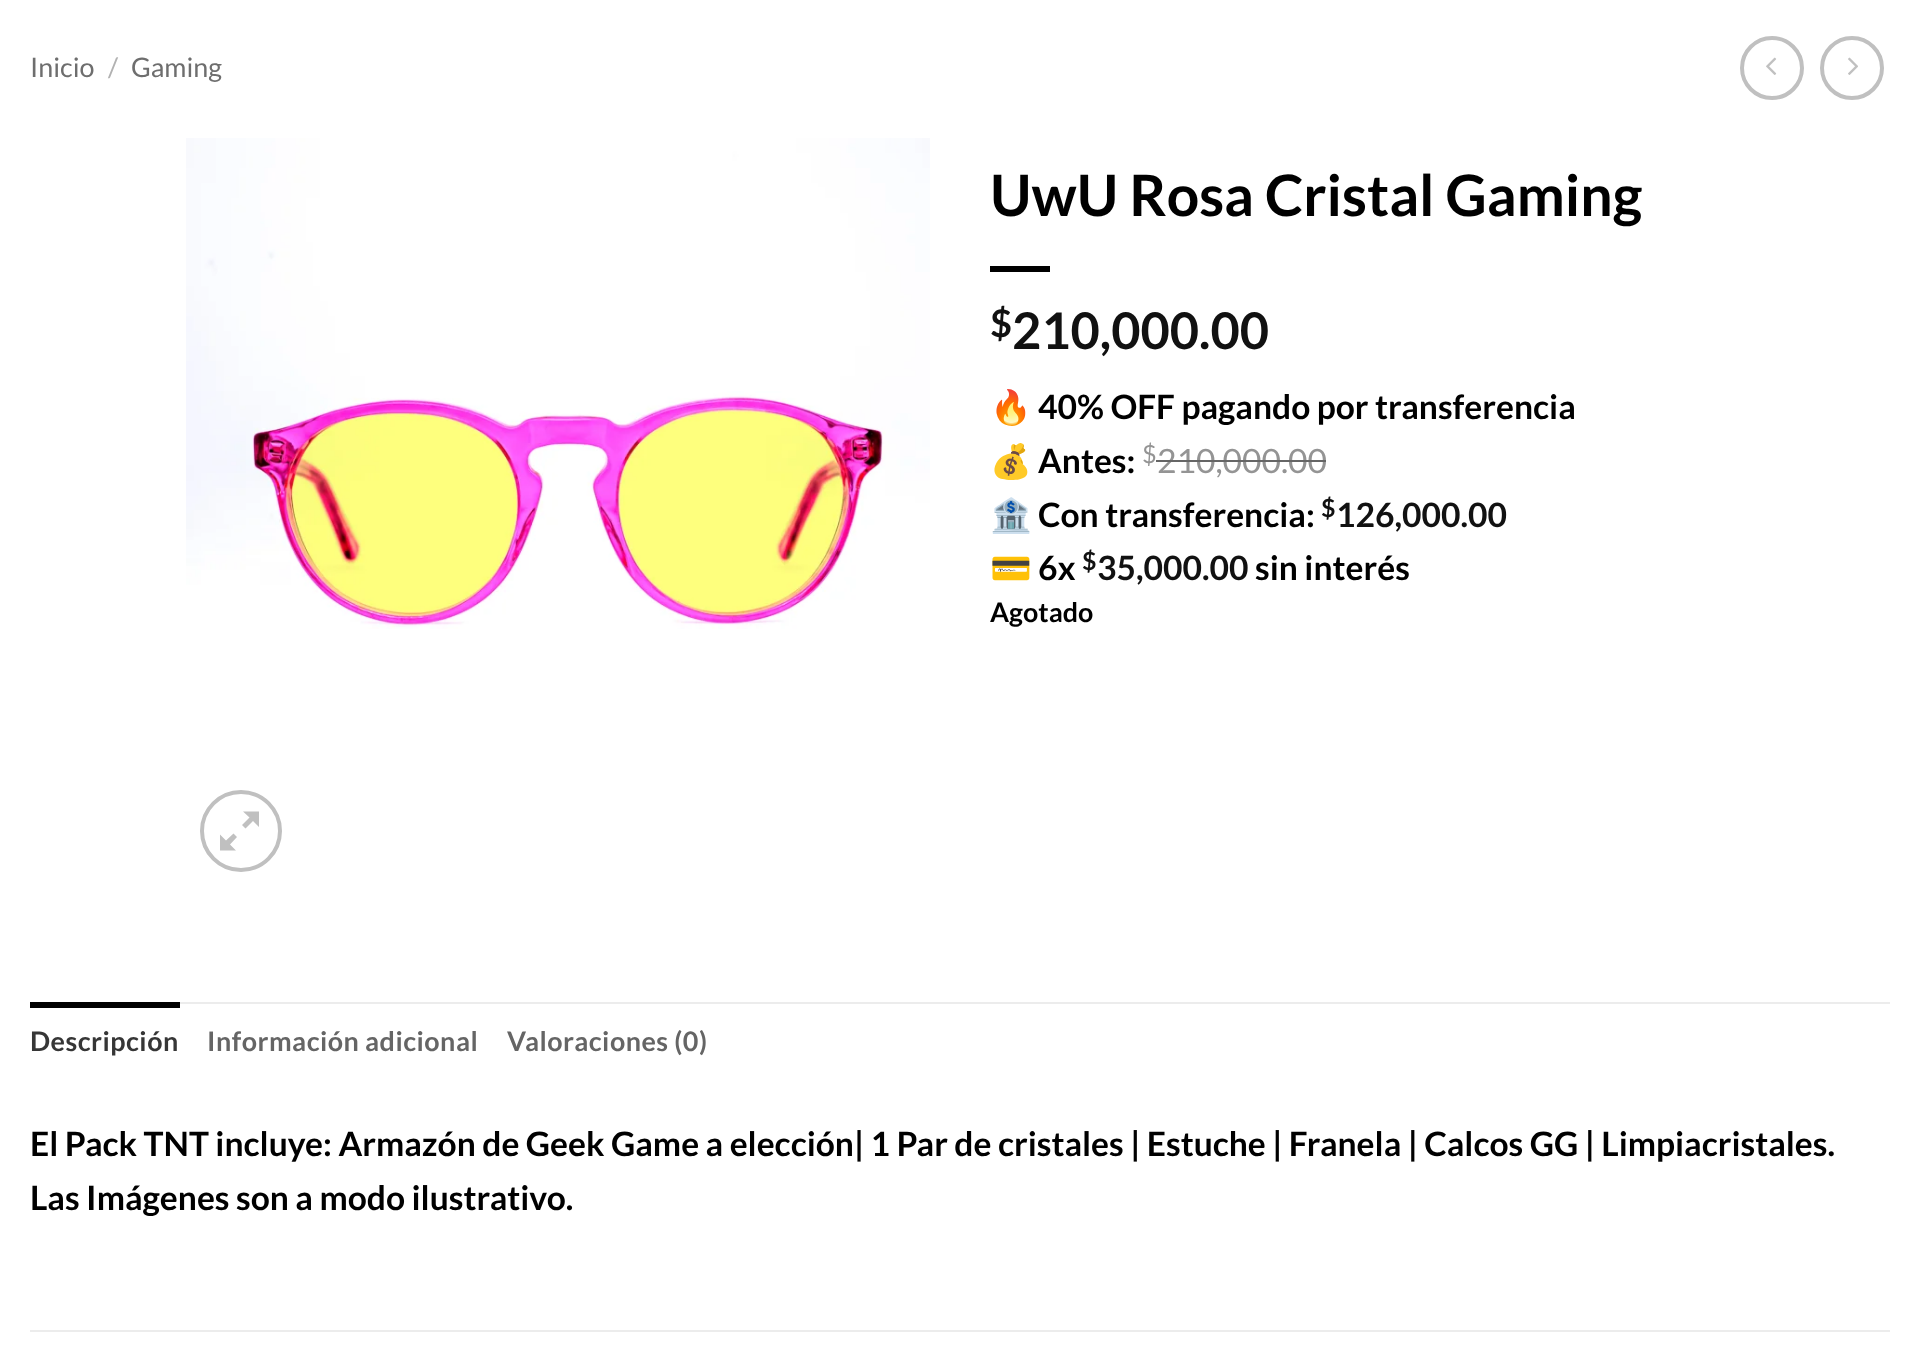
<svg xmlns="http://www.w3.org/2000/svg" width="1919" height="1366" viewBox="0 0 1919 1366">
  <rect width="100%" height="100%" fill="#ffffff"/>
  <text x="30" y="77" font-family="Lato" font-size="26.9" fill="#6e6e6e">Inicio</text>
  <text x="108" y="77" font-family="Lato" font-size="26.9" fill="#b2b2b2">/</text>
  <text x="131" y="77" font-family="Lato" font-size="26.9" fill="#6e6e6e">Gaming</text>
  <circle cx="1772" cy="68" r="30" fill="none" stroke="#c0c0c0" stroke-width="4"/>
  <image x="1766" y="57" width="11" height="18" href="img1.png"/>
  <circle cx="1852" cy="68" r="30" fill="none" stroke="#c0c0c0" stroke-width="4"/>
  <image x="1848" y="57" width="10" height="18" href="img2.png"/>
  <image x="186" y="138" width="744" height="491" href="img3.png"/>
  <circle cx="241" cy="831" r="39" fill="none" stroke="#c0c0c0" stroke-width="4"/>
  <path d="M259 811.5V827L253 821L245.5 828.5L242 825L249.5 817.5L243 811.5ZM237 837L230 844.5L236 850.5H220V834.5L226 840.5L233.5 833.5Z" fill="#c0c0c0"/>
  <text x="990" y="216" font-family="Lato" font-size="57.1" font-weight="bold" fill="#000000">UwU Rosa Cristal Gaming</text>
  <rect x="990" y="266" width="60" height="6" fill="#000000"/>
  <text x="990" y="337" font-family="Lato" font-size="38" font-weight="bold" fill="#111111">$</text>
  <text x="1012" y="349" font-family="Lato" font-size="50.5" font-weight="bold" fill="#111111">210,000.00</text>
  <text x="990" y="419" font-family="Noto Color Emoji" font-size="33.6" font-weight="bold" fill="#000000">🔥</text>
  <text x="1038" y="419" font-family="Lato" font-size="33.6" font-weight="bold" fill="#000000">40% OFF pagando por transferencia</text>
  <text x="990" y="473" font-family="Noto Color Emoji" font-size="33.6" font-weight="bold" fill="#000000">💰</text>
  <text x="1038" y="473" font-family="Lato" font-size="33.6" font-weight="bold" fill="#000000">Antes:</text>
  <text x="1142" y="463" font-family="Lato" font-size="25" fill="#949494">$</text>
  <text x="1157" y="473" font-family="Lato" font-size="33.6" fill="#949494">210,000.00</text>
  <rect x="1156" y="460" width="170" height="2" fill="#666666"/>
  <text x="990" y="527" font-family="Noto Color Emoji" font-size="33.6" font-weight="bold" fill="#000000">🏦</text>
  <text x="1038" y="527" font-family="Lato" font-size="33.6" font-weight="bold" fill="#000000">Con transferencia:</text>
  <text x="1321" y="517" font-family="Lato" font-size="25" font-weight="bold" fill="#111111">$</text>
  <text x="1336" y="527" font-family="Lato" font-size="33.6" font-weight="bold" fill="#111111">126,000.00</text>
  <text x="990" y="580" font-family="Noto Color Emoji" font-size="33.6" font-weight="bold" fill="#000000">💳</text>
  <text x="1038" y="580" font-family="Lato" font-size="33.6" font-weight="bold" fill="#000000">6x</text>
  <text x="1082" y="570" font-family="Lato" font-size="25" font-weight="bold" fill="#111111">$</text>
  <text x="1097" y="580" font-family="Lato" font-size="33.6" font-weight="bold" fill="#111111">35,000.00</text>
  <text x="1255" y="580" font-family="Lato" font-size="33.6" font-weight="bold" fill="#000000">sin interés</text>
  <text x="990" y="622" font-family="Lato" font-size="26.9" font-weight="bold" fill="#000000">Agotado</text>
  <rect x="180" y="1002" width="1710" height="2" fill="#ececec"/>
  <rect x="30" y="1002" width="150" height="6" fill="#000000"/>
  <text x="30" y="1051" font-family="Lato" font-size="26.9" font-weight="bold" letter-spacing="0.5" fill="#363636">Descripción</text>
  <text x="207" y="1051" font-family="Lato" font-size="26.9" font-weight="bold" letter-spacing="0.5" fill="#656565">Información adicional</text>
  <text x="507" y="1051" font-family="Lato" font-size="26.9" font-weight="bold" letter-spacing="0.5" fill="#656565">Valoraciones (0)</text>
  <text x="30" y="1156" font-family="Lato" font-size="33.6" font-weight="bold" fill="#000000">El Pack TNT incluye: Armazón de Geek Game a elección| 1 Par de cristales | Estuche | Franela | Calcos GG | Limpiacristales.</text>
  <text x="30" y="1210" font-family="Lato" font-size="33.6" font-weight="bold" fill="#000000">Las Imágenes son a modo ilustrativo.</text>
  <rect x="30" y="1330" width="1860" height="2" fill="#ececec"/>
</svg>
